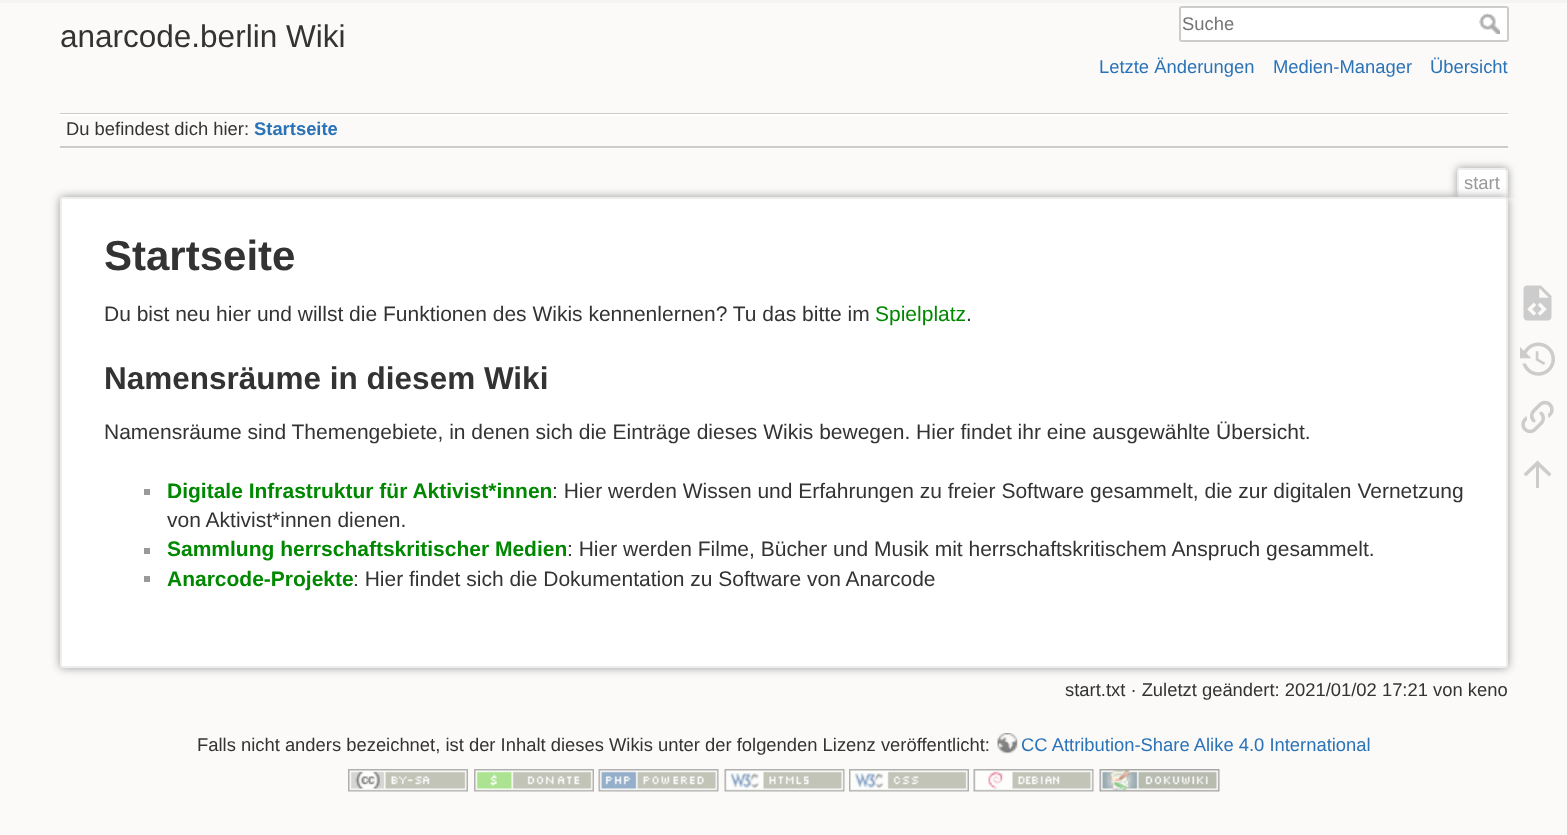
<svg xmlns="http://www.w3.org/2000/svg" width="1567" height="835" viewBox="0 0 1567 835">
  <defs>
    <clipPath id="clip1"><rect x="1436" y="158" width="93" height="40"/></clipPath>
    <filter id="blur1" x="-50%" y="-200%" width="200%" height="500%"><feGaussianBlur stdDeviation="4.5"/></filter>
    <filter id="blur2" x="-50%" y="-200%" width="200%" height="500%"><feGaussianBlur stdDeviation="5"/></filter>
  </defs>
  <rect width="100%" height="100%" fill="#fbfaf9"/>
  <image x="0" y="0" width="1567" height="3" href="img1.png"/>
  <text x="60" y="47" font-family="Liberation Sans" font-size="31.5" fill="#333333">anarcode.berlin Wiki</text>
  <rect x="1180" y="7" width="328" height="34" rx="2" fill="#ffffff" stroke="#cccccc" stroke-width="2"/>
  <text x="1182" y="30" font-family="Liberation Sans" font-size="18.4" fill="#757575">Suche</text>
  <image x="1479" y="13" width="21" height="21" href="img2.png"/>
  <text x="1099" y="73" font-family="Liberation Sans" font-size="18.4" fill="#2b73b7">Letzte Änderungen</text>
  <text x="1273" y="73" font-family="Liberation Sans" font-size="18.4" fill="#2b73b7">Medien-Manager</text>
  <text x="1430" y="73" font-family="Liberation Sans" font-size="18.4" fill="#2b73b7">Übersicht</text>
  <rect x="60" y="113" width="1448" height="1" fill="#cccccc"/>
  <rect x="60" y="148" width="1448" height="1" fill="#ffffff"/>
  <rect x="60" y="114" width="1448" height="2" fill="#ffffff"/>
  <rect x="60" y="146" width="1448" height="2" fill="#cccccc"/>
  <text x="66" y="135" font-family="Liberation Sans" font-size="18.4" fill="#333333">Du befindest dich hier:</text>
  <text x="254" y="135" font-family="Liberation Sans" font-size="18.4" font-weight="bold" fill="#2b73b7">Startseite</text>
  <g clip-path="url(#clip1)">
    <rect x="1457" y="168" width="51" height="30" rx="3" fill="#999999" filter="url(#blur1)"/>
  </g>
  <path d="M1459.5 170H1504.5C1505.5 170 1506 170.5 1506 171.5V198H1458V171.5C1458 170.5 1458.5 170 1459.5 170Z" fill="#ffffff"/>
  <rect x="1458" y="168" width="48" height="2" fill="#eeeeee"/>
  <rect x="1506" y="170" width="2" height="28" fill="#eeeeee"/>
  <rect x="1457" y="170" width="2" height="28" fill="#eeeeee"/>
  <text x="1464" y="189" font-family="Liberation Sans" font-size="18.4" fill="#999999">start</text>
  <rect x="60" y="197" width="1448" height="471" rx="3" fill="#999999" filter="url(#blur2)"/>
  <rect x="61" y="198" width="1446" height="469" rx="2" fill="#ffffff" stroke="#eeeeee" stroke-width="2"/>
  <text x="104" y="270" font-family="Liberation Sans" font-size="42" font-weight="bold" fill="#333333">Startseite</text>
  <text x="104" y="321" font-family="Liberation Sans" font-size="21" fill="#333333">Du bist neu hier und willst die Funktionen des Wikis kennenlernen? Tu das bitte im</text>
  <text x="875" y="321" font-family="Liberation Sans" font-size="21" fill="#008800">Spielplatz</text>
  <text x="966" y="321" font-family="Liberation Sans" font-size="21" fill="#333333">.</text>
  <text x="104" y="389" font-family="Liberation Sans" font-size="31.5" font-weight="bold" fill="#333333">Namensräume in diesem Wiki</text>
  <text x="104" y="439" font-family="Liberation Sans" font-size="21" fill="#333333">Namensräume sind Themengebiete, in denen sich die Einträge dieses Wikis bewegen. Hier findet ihr eine ausgewählte Übersicht.</text>
  <rect x="144" y="489" width="6" height="6" fill="#999999"/>
  <text x="167" y="498" font-family="Liberation Sans" font-size="21" font-weight="bold" fill="#008800">Digitale Infrastruktur für Aktivist*innen</text>
  <text x="552" y="498" font-family="Liberation Sans" font-size="21" fill="#333333">: Hier werden Wissen und Erfahrungen zu freier Software gesammelt, die zur digitalen Vernetzung</text>
  <text x="167" y="527" font-family="Liberation Sans" font-size="21" fill="#333333">von Aktivist*innen dienen.</text>
  <rect x="144" y="548" width="6" height="6" fill="#999999"/>
  <text x="167" y="556" font-family="Liberation Sans" font-size="21" font-weight="bold" fill="#008800">Sammlung herrschaftskritischer Medien</text>
  <text x="567" y="556" font-family="Liberation Sans" font-size="21" fill="#333333">: Hier werden Filme, Bücher und Musik mit herrschaftskritischem Anspruch gesammelt.</text>
  <rect x="144" y="576" width="6" height="6" fill="#999999"/>
  <text x="167" y="586" font-family="Liberation Sans" font-size="21" font-weight="bold" fill="#008800">Anarcode-Projekte</text>
  <text x="353" y="586" font-family="Liberation Sans" font-size="21" fill="#333333">: Hier findet sich die Dokumentation zu Software von Anarcode</text>
  <text x="1065" y="696" font-family="Liberation Sans" font-size="18.4" fill="#333333">start.txt · Zuletzt geändert: 2021/01/02 17:21 von keno</text>
  <image x="1523" y="285" width="29" height="36" href="img3.png"/>
  <image x="1520" y="342" width="35" height="34" href="img4.png"/>
  <image x="1521" y="400" width="33" height="34" href="img5.png"/>
  <path d="M1539 488H1536V467L1526 476.5L1523.5 474L1537.5 460.5L1551.5 474L1549 476.5L1539 467Z" fill="#cccccc"/>
  <text x="197" y="751" font-family="Liberation Sans" font-size="18.4" fill="#333333">Falls nicht anders bezeichnet, ist der Inhalt dieses Wikis unter der folgenden Lizenz veröffentlicht:</text>
  <image x="997" y="733" width="21" height="21" href="img6.png"/>
  <text x="1021" y="751" font-family="Liberation Sans" font-size="18.4" fill="#2b73b7">CC Attribution-Share Alike 4.0 International</text>
  <image x="348" y="769" width="120" height="23" href="img7.png"/>
  <image x="474" y="769" width="120" height="23" href="img8.png"/>
  <image x="598" y="769" width="121" height="23" href="img9.png"/>
  <image x="724" y="769" width="121" height="23" href="img10.png"/>
  <image x="849" y="769" width="120" height="23" href="img11.png"/>
  <image x="973" y="769" width="121" height="23" href="img12.png"/>
  <image x="1099" y="769" width="121" height="23" href="img13.png"/>
</svg>
